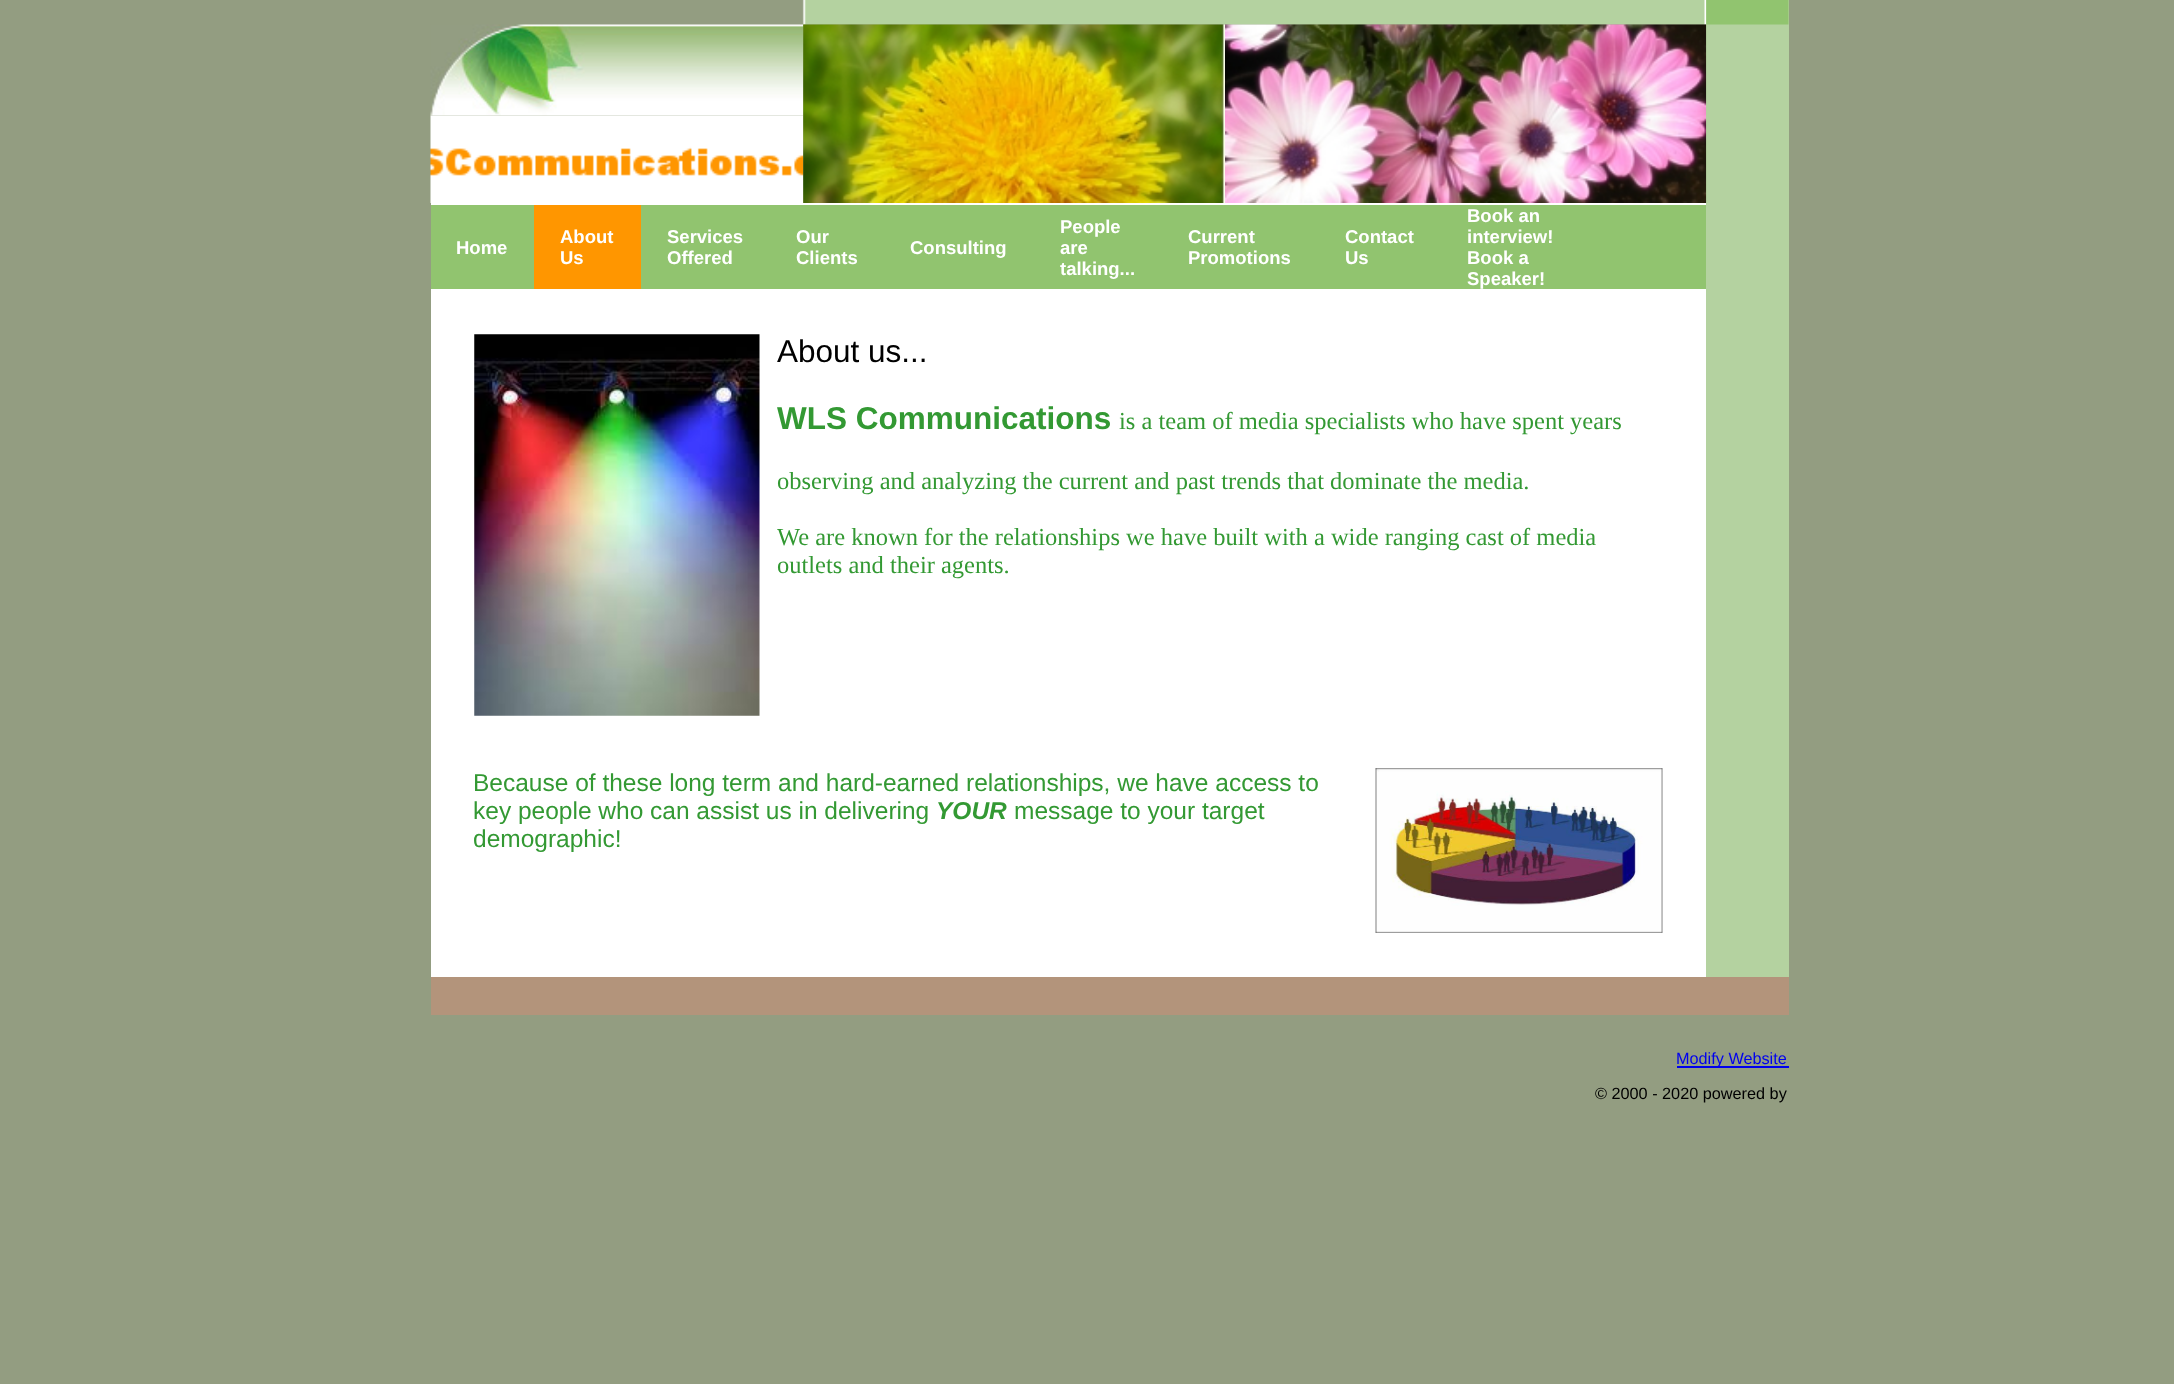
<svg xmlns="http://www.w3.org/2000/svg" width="2174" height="1384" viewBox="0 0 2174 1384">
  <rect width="100%" height="100%" fill="#939d81"/>
  <rect x="1706" y="0" width="83" height="977" fill="#b4d2a0"/>
  <image x="802" y="0" width="905" height="25" href="img1.png"/>
  <image x="430" y="24" width="374" height="92" href="img2.png"/>
  <image x="430" y="115" width="374" height="88" href="img3.png"/>
  <image x="803" y="24" width="422" height="179" href="img4.png"/>
  <image x="1225" y="24" width="482" height="179" href="img5.png"/>
  <rect x="431" y="203" width="1275" height="2" fill="#ffffff"/>
  <rect x="431" y="205" width="1275" height="84" fill="#91c46f"/>
  <text x="456" y="254" font-family="Liberation Sans" font-size="18.5" font-weight="bold" fill="#ffffff">Home</text>
  <rect x="534" y="205" width="107" height="84" fill="#ff9600"/>
  <text x="560" y="243" font-family="Liberation Sans" font-size="18.5" font-weight="bold" fill="#ffffff">About</text>
  <text x="560" y="264" font-family="Liberation Sans" font-size="18.5" font-weight="bold" fill="#ffffff">Us</text>
  <text x="667" y="243" font-family="Liberation Sans" font-size="18.5" font-weight="bold" fill="#ffffff">Services</text>
  <text x="667" y="264" font-family="Liberation Sans" font-size="18.5" font-weight="bold" fill="#ffffff">Offered</text>
  <text x="796" y="243" font-family="Liberation Sans" font-size="18.5" font-weight="bold" fill="#ffffff">Our</text>
  <text x="796" y="264" font-family="Liberation Sans" font-size="18.5" font-weight="bold" fill="#ffffff">Clients</text>
  <text x="910" y="254" font-family="Liberation Sans" font-size="18.5" font-weight="bold" fill="#ffffff">Consulting</text>
  <text x="1060" y="233" font-family="Liberation Sans" font-size="18.5" font-weight="bold" fill="#ffffff">People</text>
  <text x="1060" y="254" font-family="Liberation Sans" font-size="18.5" font-weight="bold" fill="#ffffff">are</text>
  <text x="1060" y="275" font-family="Liberation Sans" font-size="18.5" font-weight="bold" fill="#ffffff">talking...</text>
  <text x="1188" y="243" font-family="Liberation Sans" font-size="18.5" font-weight="bold" fill="#ffffff">Current</text>
  <text x="1188" y="264" font-family="Liberation Sans" font-size="18.5" font-weight="bold" fill="#ffffff">Promotions</text>
  <text x="1345" y="243" font-family="Liberation Sans" font-size="18.5" font-weight="bold" fill="#ffffff">Contact</text>
  <text x="1345" y="264" font-family="Liberation Sans" font-size="18.5" font-weight="bold" fill="#ffffff">Us</text>
  <text x="1467" y="222" font-family="Liberation Sans" font-size="18.5" font-weight="bold" fill="#ffffff">Book an</text>
  <text x="1467" y="243" font-family="Liberation Sans" font-size="18.5" font-weight="bold" fill="#ffffff">interview!</text>
  <text x="1467" y="264" font-family="Liberation Sans" font-size="18.5" font-weight="bold" fill="#ffffff">Book a</text>
  <text x="1467" y="285" font-family="Liberation Sans" font-size="18.5" font-weight="bold" fill="#ffffff">Speaker!</text>
  <rect x="431" y="289" width="1275" height="688" fill="#ffffff"/>
  <image x="474" y="334" width="286" height="382" href="img6.png"/>
  <text x="777" y="362" font-family="Liberation Sans" font-size="31.5" fill="#000000">About us...</text>
  <text x="777" y="429" font-family="Liberation Sans" font-size="31.5" font-weight="bold" fill="#339933">WLS Communications</text>
  <text x="1119" y="429" font-family="Liberation Serif" font-size="24.5" fill="#339933">is a team of media specialists who have spent years</text>
  <text x="777" y="489" font-family="Liberation Serif" font-size="24.5" fill="#339933">observing and analyzing the current and past trends that dominate the media.</text>
  <text x="777" y="545" font-family="Liberation Serif" font-size="24.5" fill="#339933">We are known for the relationships we have built with a wide ranging cast of media</text>
  <text x="777" y="573" font-family="Liberation Serif" font-size="24.5" fill="#339933">outlets and their agents.</text>
  <text x="473" y="791" font-family="Liberation Sans" font-size="24.5" fill="#339933">Because of these long term and hard-earned relationships, we have access to</text>
  <text x="473" y="819" font-family="Liberation Sans" font-size="24.5" fill="#339933">key people who can assist us in delivering</text>
  <text x="936" y="819" font-family="Liberation Sans" font-size="24.5" font-weight="bold" font-style="italic" fill="#339933">YOUR</text>
  <text x="1014" y="819" font-family="Liberation Sans" font-size="24.5" fill="#339933">message to your target</text>
  <text x="473" y="847" font-family="Liberation Sans" font-size="24.5" fill="#339933">demographic!</text>
  <image x="1375" y="768" width="288" height="165" href="img7.png"/>
  <image x="1706" y="0" width="83" height="203" href="img8.png"/>
  <rect x="431" y="977" width="1358" height="38" fill="#b3947b"/>
  <rect x="1677" y="1066" width="112" height="2" fill="#0000ee"/>
  <text x="1676" y="1064" font-family="Liberation Sans" font-size="16.25" fill="#0000ee">Modify Website</text>
  <text x="1595" y="1099" font-family="Liberation Sans" font-size="16.25" fill="#000000">© 2000 - 2020 powered by</text>
</svg>
